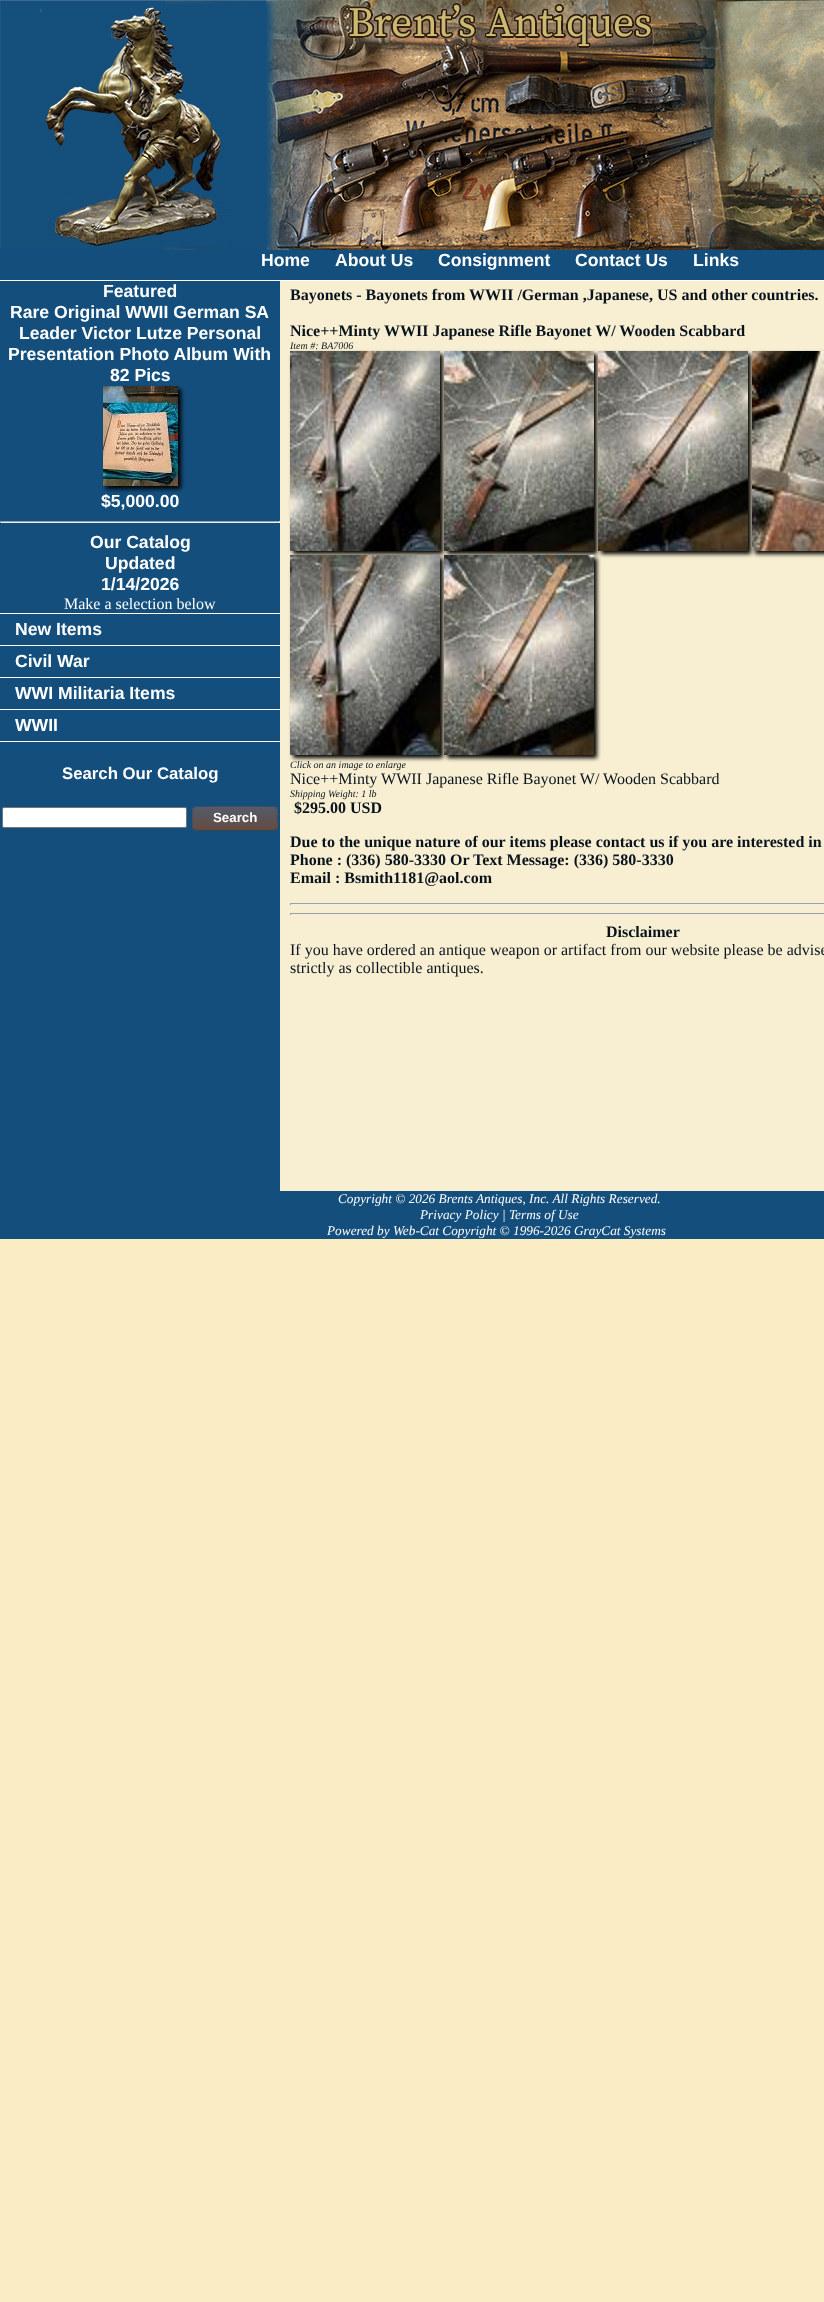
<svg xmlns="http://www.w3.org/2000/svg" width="824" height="2302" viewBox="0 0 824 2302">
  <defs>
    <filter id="blur1" x="-50%" y="-200%" width="200%" height="500%"><feGaussianBlur stdDeviation="2"/></filter>
    <clipPath id="clip1"><rect x="192" y="806" width="86" height="25" rx="5"/></clipPath>
    <linearGradient id="g1" gradientUnits="userSpaceOnUse" x1="235" y1="807" x2="235" y2="830"><stop offset="0" stop-color="#545b6b"/><stop offset="1" stop-color="#644c3f"/></linearGradient>
    <linearGradient id="g2" gradientUnits="userSpaceOnUse" x1="235" y1="830" x2="235" y2="853"><stop offset="0" stop-color="#545b6b"/><stop offset="1" stop-color="#644c3f"/></linearGradient>
  </defs>
  <rect width="100%" height="100%" fill="#fbedc3"/>
  <rect x="280" y="281" width="544" height="910" fill="#f8efd2"/>
  <image x="0" y="0" width="824" height="250" href="img1.png"/>
  <rect x="0" y="250" width="824" height="30" fill="#144e7c"/>
  <rect x="0" y="280" width="824" height="1" fill="#ffffff"/>
  <text x="261" y="266" font-family="Liberation Sans" font-size="17.6" font-weight="bold" fill="#ffffff">Home</text>
  <text x="335" y="266" font-family="Liberation Sans" font-size="17.6" font-weight="bold" fill="#ffffff">About Us</text>
  <text x="438" y="266" font-family="Liberation Sans" font-size="17.6" font-weight="bold" fill="#ffffff">Consignment</text>
  <text x="575" y="266" font-family="Liberation Sans" font-size="17.6" font-weight="bold" fill="#ffffff">Contact Us</text>
  <text x="693" y="266" font-family="Liberation Sans" font-size="17.6" font-weight="bold" fill="#ffffff">Links</text>
  <rect x="0" y="281" width="280" height="910" fill="#144e7c"/>
  <text x="103" y="297" font-family="Liberation Sans" font-size="17.6" font-weight="bold" fill="#ffffff">Featured</text>
  <text x="10" y="318" font-family="Liberation Sans" font-size="17.6" font-weight="bold" fill="#ffffff">Rare Original WWII German SA</text>
  <text x="19" y="339" font-family="Liberation Sans" font-size="17.6" font-weight="bold" fill="#ffffff">Leader Victor Lutze Personal</text>
  <text x="8" y="360" font-family="Liberation Sans" font-size="17.6" font-weight="bold" fill="#ffffff">Presentation Photo Album With</text>
  <text x="110" y="381" font-family="Liberation Sans" font-size="17.6" font-weight="bold" fill="#ffffff">82 Pics</text>
  <rect x="106" y="389" width="75" height="100" fill="#000000" filter="url(#blur1)"/>
  <image x="103" y="386" width="75" height="100" href="img2.png"/>
  <text x="101" y="507" font-family="Liberation Sans" font-size="17.6" font-weight="bold" fill="#ffffff">$5,000.00</text>
  <rect x="0" y="521" width="280" height="1" fill="#9f9f9f"/>
  <rect x="279" y="521" width="1" height="2" fill="#eeeeee"/>
  <rect x="0" y="522" width="280" height="1" fill="#eeeeee"/>
  <rect x="0" y="521" width="1" height="2" fill="#9f9f9f"/>
  <text x="90" y="548" font-family="Liberation Sans" font-size="17.6" font-weight="bold" fill="#ffffff">Our Catalog</text>
  <text x="105" y="569" font-family="Liberation Sans" font-size="17.6" font-weight="bold" fill="#ffffff">Updated</text>
  <text x="101" y="590" font-family="Liberation Sans" font-size="17.6" font-weight="bold" fill="#ffffff">1/14/2026</text>
  <text x="64" y="609" font-family="Liberation Serif" font-size="16" fill="#ffffff">Make a selection below</text>
  <rect x="0" y="613" width="280" height="1" fill="#ffffff"/>
  <rect x="0" y="645" width="280" height="1" fill="#ffffff"/>
  <text x="15" y="635" font-family="Liberation Sans" font-size="17.6" font-weight="bold" fill="#ffffff">New Items</text>
  <rect x="0" y="677" width="280" height="1" fill="#ffffff"/>
  <text x="15" y="667" font-family="Liberation Sans" font-size="17.6" font-weight="bold" fill="#ffffff">Civil War</text>
  <rect x="0" y="709" width="280" height="1" fill="#ffffff"/>
  <text x="15" y="699" font-family="Liberation Sans" font-size="17.6" font-weight="bold" fill="#ffffff">WWI Militaria Items</text>
  <rect x="0" y="741" width="280" height="1" fill="#ffffff"/>
  <text x="15" y="731" font-family="Liberation Sans" font-size="17.6" font-weight="bold" fill="#ffffff">WWII</text>
  <text x="62" y="779" font-family="Liberation Sans" font-size="16.75" font-weight="bold" fill="#ffffff">Search Our Catalog</text>
  <rect x="2.5" y="807.5" width="184" height="20" rx="1.5" fill="#ffffff" stroke="#767676"/>
  <g clip-path="url(#clip1)">
    <rect x="192" y="807" width="86" height="23" fill="url(#g1)"/>
    <rect x="192" y="830" width="86" height="1" fill="url(#g2)"/>
  </g>
  <path d="M276 829L273.5 830.5H196.5L194 829" fill="none" stroke="#3b404b"/>
  <path d="M194 829C191.5 827 192.5 823.5 192.5 821C192.5 804 191.5 806.5 209.5 806.5H260.5C278.5 806.5 277.5 804 277.5 821C277.5 823.5 278.5 827 276 829" fill="none" stroke="#474d5b"/>
  <text x="213" y="822" font-family="Liberation Sans" font-size="13.3" font-weight="bold" fill="#ffffff">Search</text>
  <text x="290" y="300" font-family="Liberation Serif" font-size="16" font-weight="bold" fill="#09131d">Bayonets - Bayonets from WWII /German ,Japanese, US and other countries.</text>
  <text x="290" y="336" font-family="Liberation Serif" font-size="16" font-weight="bold" fill="#09131d">Nice++Minty WWII Japanese Rifle Bayonet W/ Wooden Scabbard</text>
  <text x="290" y="349" font-family="Liberation Serif" font-size="10" font-style="italic" fill="#09131d">Item #: BA7006</text>
  <rect x="293" y="354" width="150" height="200" fill="#000000" filter="url(#blur1)"/>
  <rect x="447" y="354" width="150" height="200" fill="#000000" filter="url(#blur1)"/>
  <rect x="601" y="354" width="150" height="200" fill="#000000" filter="url(#blur1)"/>
  <rect x="755" y="354" width="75" height="200" fill="#000000" filter="url(#blur1)"/>
  <image x="290" y="351" width="150" height="200" href="img3.png"/>
  <image x="444" y="351" width="150" height="200" href="img4.png"/>
  <image x="598" y="351" width="150" height="200" href="img5.png"/>
  <image x="752" y="351" width="72" height="200" href="img6.png"/>
  <rect x="293" y="558" width="150" height="200" fill="#000000" filter="url(#blur1)"/>
  <rect x="447" y="558" width="150" height="200" fill="#000000" filter="url(#blur1)"/>
  <image x="290" y="555" width="150" height="200" href="img3.png"/>
  <image x="444" y="555" width="150" height="200" href="img7.png"/>
  <text x="290" y="768" font-family="Liberation Serif" font-size="10" font-style="italic" fill="#09131d">Click on an image to enlarge</text>
  <text x="290" y="784" font-family="Liberation Serif" font-size="16" fill="#09131d">Nice++Minty WWII Japanese Rifle Bayonet W/ Wooden Scabbard</text>
  <text x="290" y="797" font-family="Liberation Serif" font-size="10" font-style="italic" fill="#09131d">Shipping Weight: 1 lb</text>
  <text x="294" y="813" font-family="Liberation Serif" font-size="16" font-weight="bold" fill="#09131d">$295.00 USD</text>
  <text x="290" y="847" font-family="Liberation Serif" font-size="16" font-weight="bold" fill="#09131d">Due to the unique nature of our items please contact us if you are interested in</text>
  <text x="290" y="865" font-family="Liberation Serif" font-size="16" font-weight="bold" fill="#09131d">Phone : (336) 580-3330 Or Text Message: (336) 580-3330</text>
  <text x="290" y="883" font-family="Liberation Serif" font-size="16" font-weight="bold" fill="#09131d">Email : Bsmith1181@aol.com</text>
  <rect x="290" y="903" width="534" height="1" fill="#9f9f9f"/>
  <rect x="290" y="904" width="534" height="1" fill="#eeeeee"/>
  <rect x="290" y="903" width="1" height="2" fill="#9f9f9f"/>
  <rect x="290" y="913" width="534" height="1" fill="#9f9f9f"/>
  <rect x="290" y="914" width="534" height="1" fill="#eeeeee"/>
  <rect x="290" y="913" width="1" height="2" fill="#9f9f9f"/>
  <text x="606" y="937" font-family="Liberation Serif" font-size="16" font-weight="bold" fill="#09131d">Disclaimer</text>
  <text x="290" y="955" font-family="Liberation Serif" font-size="16" fill="#09131d">If you have ordered an antique weapon or artifact from our website please be advise</text>
  <text x="290" y="973" font-family="Liberation Serif" font-size="16" fill="#09131d">strictly as collectible antiques.</text>
  <rect x="0" y="1191" width="824" height="48" fill="#144e7c"/>
  <text x="338" y="1203" font-family="Liberation Serif" font-size="13.3" font-style="italic" fill="#ffffff">Copyright © 2026 Brents Antiques, Inc. All Rights Reserved.</text>
  <text x="420" y="1219" font-family="Liberation Serif" font-size="13.3" font-style="italic" fill="#ffffff">Privacy Policy | Terms of Use</text>
  <text x="327" y="1235" font-family="Liberation Serif" font-size="13.3" font-style="italic" fill="#ffffff">Powered by Web-Cat Copyright © 1996-2026 GrayCat Systems</text>
</svg>
